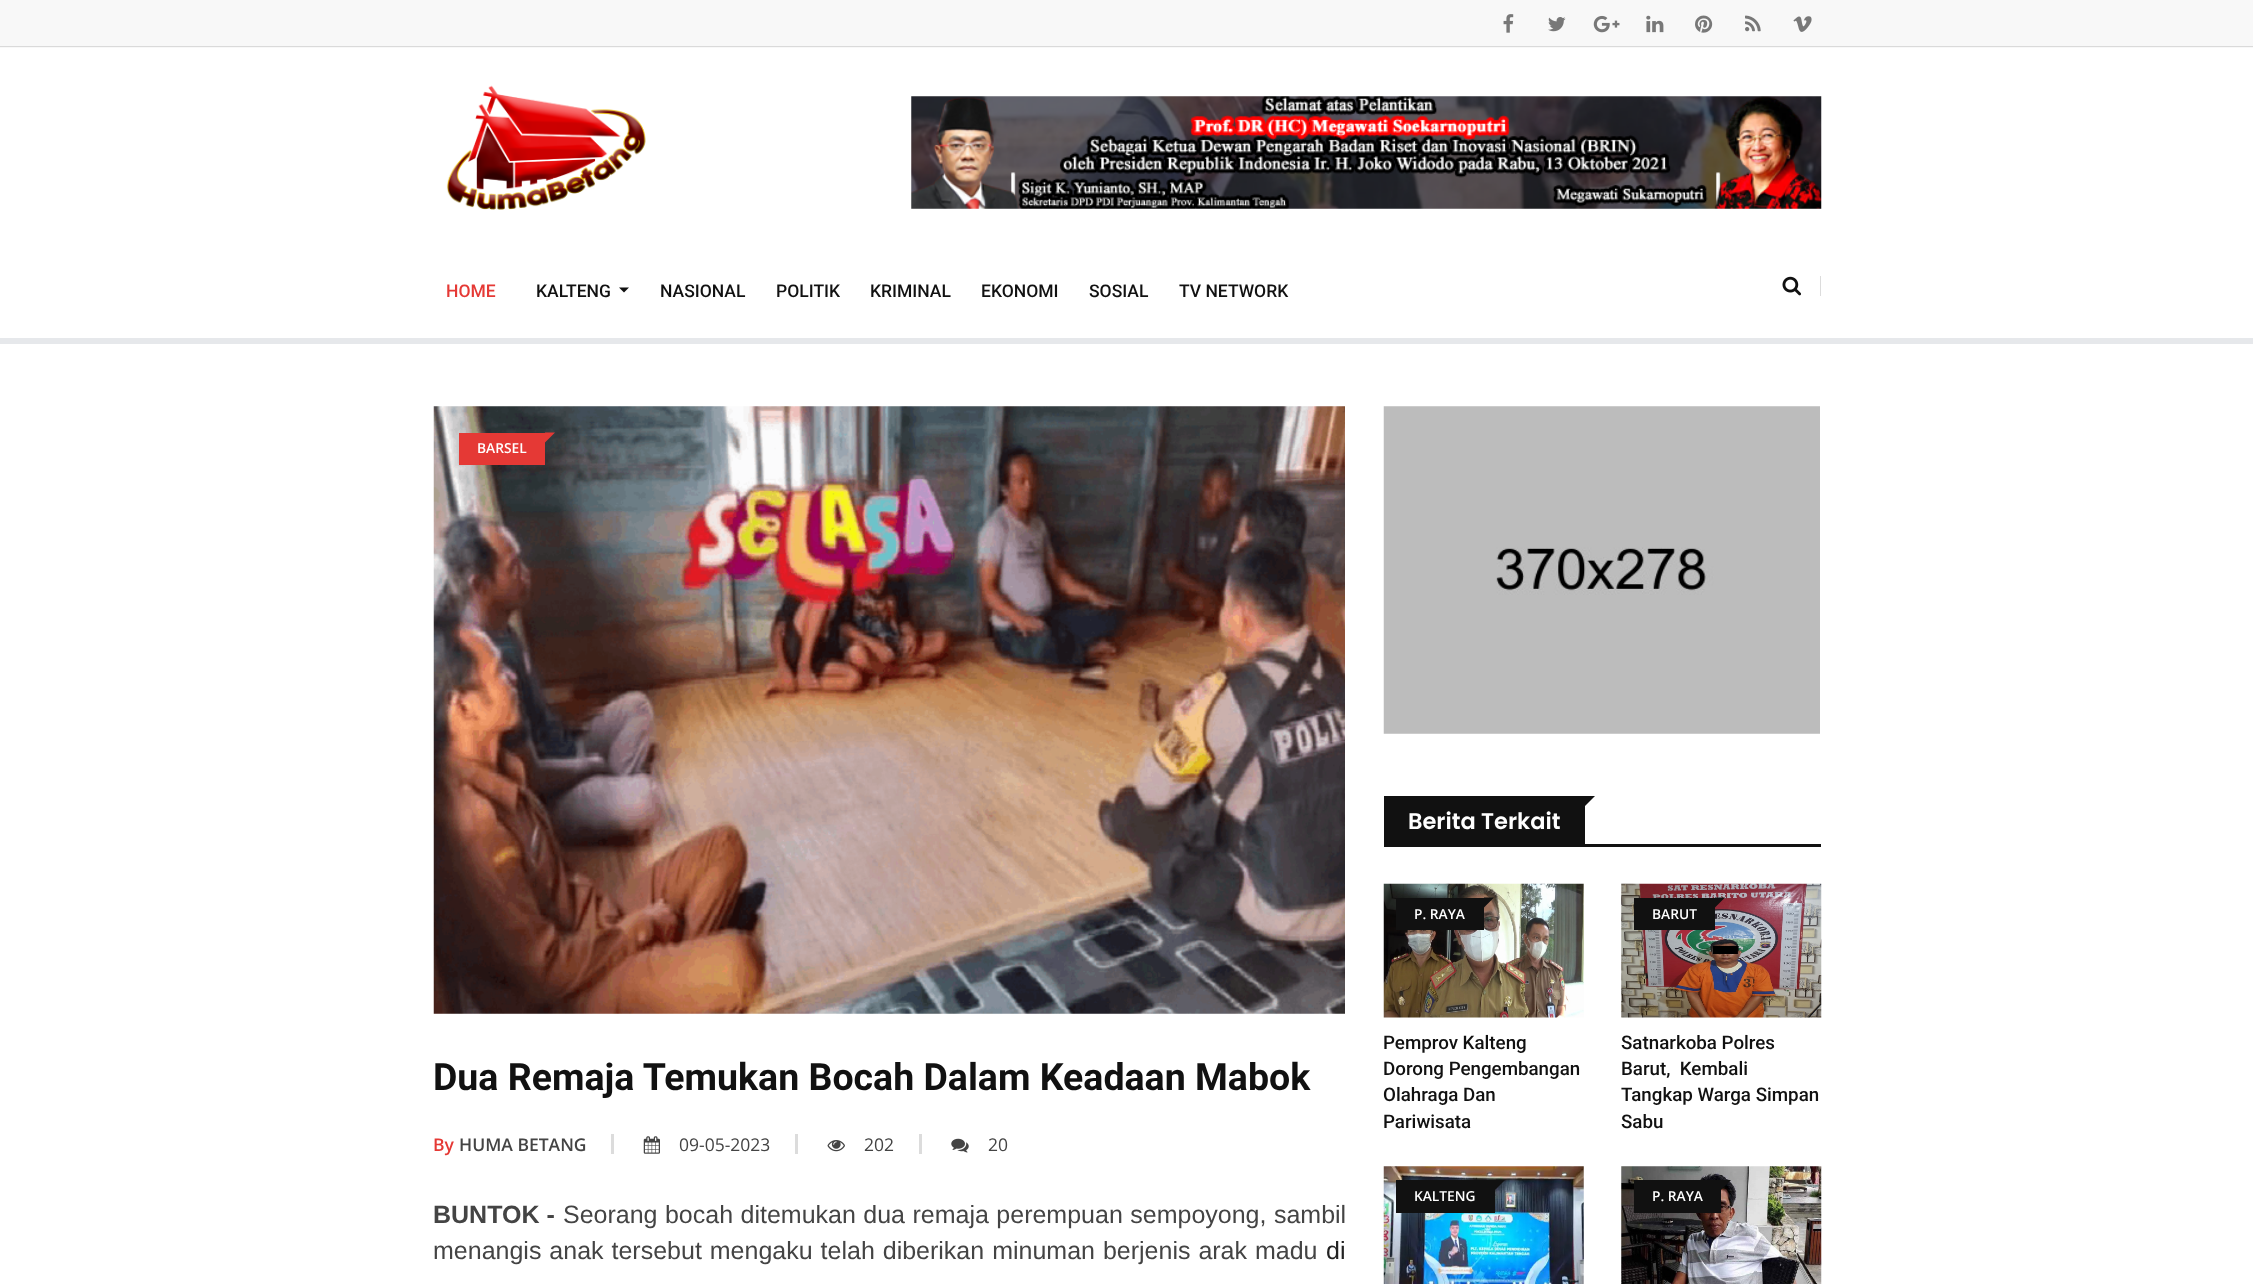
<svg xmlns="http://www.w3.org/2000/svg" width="2253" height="1284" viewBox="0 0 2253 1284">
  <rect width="100%" height="100%" fill="#e6e8eb"/>
  <rect x="0" y="0" width="2253" height="48" fill="#f8f8f8"/>
  <image x="1503" y="14" width="11" height="19" href="img1.png"/>
  <image x="1548" y="17" width="18" height="15" href="img2.png"/>
  <image x="1593" y="15" width="27" height="18" href="img3.png"/>
  <image x="1646" y="15" width="18" height="18" href="img4.png"/>
  <image x="1695" y="15" width="18" height="18" href="img5.png"/>
  <image x="1745" y="15" width="16" height="17" href="img6.png"/>
  <image x="1793" y="16" width="19" height="16" href="img7.png"/>
  <rect x="0" y="46" width="2253" height="1" fill="#dadada"/>
  <rect x="0" y="48" width="2253" height="290" fill="#ffffff"/>
  <image x="446" y="85" width="200" height="125" href="img8.png"/>
  <image x="911" y="96" width="911" height="113" href="img9.png"/>
  <text x="446" y="297" font-family="Roboto" font-size="17.5" font-weight="500" fill="#e53935">HOME</text>
  <text x="536" y="297" font-family="Roboto" font-size="17.5" font-weight="500" fill="#111111">KALTENG</text>
  <path d="M619 287.5H629L624 292.5Z" fill="#111111"/>
  <text x="660" y="297" font-family="Roboto" font-size="17.5" font-weight="500" fill="#111111">NASIONAL</text>
  <text x="776" y="297" font-family="Roboto" font-size="17.5" font-weight="500" fill="#111111">POLITIK</text>
  <text x="870" y="297" font-family="Roboto" font-size="17.5" font-weight="500" fill="#111111">KRIMINAL</text>
  <text x="981" y="297" font-family="Roboto" font-size="17.5" font-weight="500" fill="#111111">EKONOMI</text>
  <text x="1089" y="297" font-family="Roboto" font-size="17.5" font-weight="500" fill="#111111">SOSIAL</text>
  <text x="1179" y="297" font-family="Roboto" font-size="17.5" font-weight="500" fill="#111111">TV NETWORK</text>
  <rect x="1820" y="276" width="1" height="20" fill="#dcdcdc"/>
  <image x="1782" y="276" width="19" height="20" href="img10.png"/>
  <rect x="0" y="344" width="2253" height="940" fill="#ffffff"/>
  <image x="433" y="406" width="912" height="608" href="img11.png"/>
  <rect x="459" y="433" width="86" height="32" fill="#e53935"/>
  <path d="M545 432.5H555L545 442.5Z" fill="#e53935"/>
  <text x="477" y="453" font-family="Open Sans" font-size="13.75" font-weight="600" fill="#ffffff">BARSEL</text>
  <text x="433" y="1090" font-family="Roboto" font-size="37.5" font-weight="bold" fill="#111111">Dua Remaja Temukan Bocah Dalam Keadaan Mabok</text>
  <rect x="611" y="1134" width="3" height="20" fill="#dcdcdc"/>
  <text x="433" y="1151" font-family="Open Sans" font-size="17.5" font-weight="600" fill="#e53935">By</text>
  <text x="459" y="1151" font-family="Open Sans" font-size="17.5" font-weight="600" fill="#444444">HUMA BETANG</text>
  <rect x="795" y="1134" width="3" height="20" fill="#dcdcdc"/>
  <image x="643" y="1136" width="17" height="18" href="img12.png"/>
  <text x="679" y="1151" font-family="Open Sans" font-size="17.5" fill="#444444">09-05-2023</text>
  <rect x="919" y="1134" width="3" height="20" fill="#dcdcdc"/>
  <image x="827" y="1140" width="18" height="12" href="img13.png"/>
  <text x="864" y="1151" font-family="Open Sans" font-size="17.5" fill="#444444">202</text>
  <image x="951" y="1138" width="18" height="15" href="img14.png"/>
  <text x="988" y="1151" font-family="Open Sans" font-size="17.5" fill="#444444">20</text>
  <text x="433" y="1223" font-family="Liberation Sans" font-size="25" font-weight="bold" fill="#444444">BUNTOK -</text>
  <text x="563" y="1223" word-spacing="0.5" font-family="Liberation Sans" font-size="25" fill="#444444">Seorang bocah ditemukan dua remaja perempuan sempoyong, sambil</text>
  <text x="433" y="1259" word-spacing="1" font-family="Liberation Sans" font-size="25" fill="#444444">menangis anak tersebut mengaku telah diberikan minuman berjenis arak madu</text>
  <text x="1326" y="1259" font-family="Liberation Sans" font-size="25" fill="#222222">di</text>
  <image x="1383" y="406" width="437" height="328" href="img15.png"/>
  <rect x="1384" y="796" width="201" height="48" fill="#111111"/>
  <path d="M1585 796H1595L1585 806Z" fill="#111111"/>
  <text x="1408" y="829" font-family="Poppins" font-size="22.5" font-weight="600" fill="#ffffff">Berita Terkait</text>
  <rect x="1384" y="844" width="437" height="3" fill="#111111"/>
  <image x="1383" y="883" width="201" height="135" href="img16.png"/>
  <rect x="1396" y="898" width="88" height="32" fill="#111111"/>
  <path d="M1484 897.5H1494L1484 907.5Z" fill="#111111"/>
  <text x="1414" y="919" font-family="Open Sans" font-size="13.75" font-weight="600" fill="#ffffff">P. RAYA</text>
  <text x="1383" y="1049" font-family="Roboto" font-size="18.75" font-weight="500" fill="#111111">Pemprov Kalteng</text>
  <text x="1383" y="1075" font-family="Roboto" font-size="18.75" font-weight="500" fill="#111111">Dorong Pengembangan</text>
  <text x="1383" y="1101" font-family="Roboto" font-size="18.75" font-weight="500" fill="#111111">Olahraga Dan</text>
  <text x="1383" y="1128" font-family="Roboto" font-size="18.75" font-weight="500" fill="#111111">Pariwisata</text>
  <image x="1621" y="883" width="201" height="135" href="img17.png"/>
  <rect x="1634" y="898" width="81" height="32" fill="#111111"/>
  <path d="M1715 897.5H1725L1715 907.5Z" fill="#111111"/>
  <text x="1652" y="919" font-family="Open Sans" font-size="13.75" font-weight="600" fill="#ffffff">BARUT</text>
  <text x="1621" y="1049" font-family="Roboto" font-size="18.75" font-weight="500" fill="#111111">Satnarkoba Polres</text>
  <text x="1621" y="1075" font-family="Roboto" font-size="18.75" font-weight="500" fill="#111111" xml:space="preserve">Barut,  Kembali</text>
  <text x="1621" y="1101" font-family="Roboto" font-size="18.75" font-weight="500" fill="#111111">Tangkap Warga Simpan</text>
  <text x="1621" y="1128" font-family="Roboto" font-size="18.75" font-weight="500" fill="#111111">Sabu</text>
  <image x="1383" y="1166" width="201" height="118" href="img18.png"/>
  <rect x="1396" y="1180" width="99" height="33" fill="#111111"/>
  <path d="M1495 1180H1505L1495 1190Z" fill="#111111"/>
  <text x="1414" y="1201" font-family="Open Sans" font-size="13.75" font-weight="600" fill="#ffffff">KALTENG</text>
  <image x="1621" y="1166" width="201" height="118" href="img19.png"/>
  <rect x="1634" y="1180" width="87" height="33" fill="#111111"/>
  <path d="M1721 1180H1731L1721 1190Z" fill="#111111"/>
  <text x="1652" y="1201" font-family="Open Sans" font-size="13.75" font-weight="600" fill="#ffffff">P. RAYA</text>
</svg>
